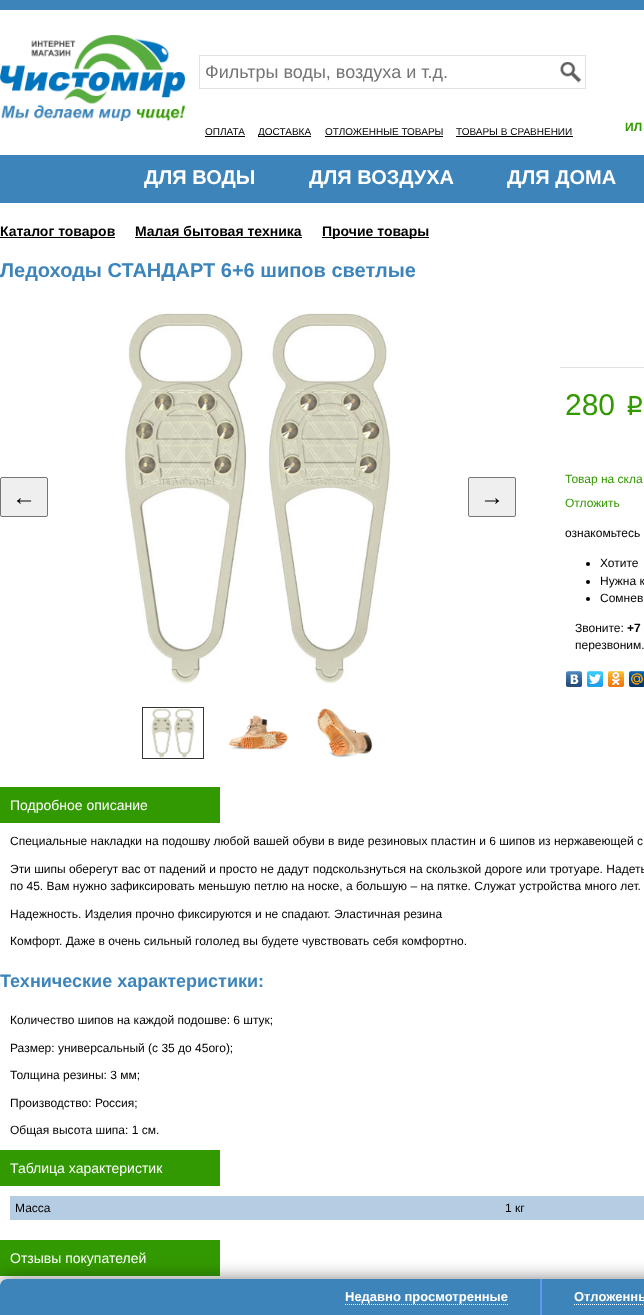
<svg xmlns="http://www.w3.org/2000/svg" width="644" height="1315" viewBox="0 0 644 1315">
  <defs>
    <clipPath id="clip1"><path d="M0 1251H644V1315H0ZM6 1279H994C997.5 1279 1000 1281.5 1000 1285V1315H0V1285C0 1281.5 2.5 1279 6 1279Z" clip-rule="evenodd"/></clipPath>
    <filter id="blur1" x="-50%" y="-200%" width="200%" height="500%"><feGaussianBlur stdDeviation="9"/></filter>
  </defs>
  <rect width="100%" height="100%" fill="#ffffff"/>
  <rect x="0" y="0" width="644" height="10" fill="#3d84ba"/>
  <image x="0" y="35" width="185" height="86" href="img1.png"/>
  <rect x="199.5" y="55.5" width="386" height="33" fill="none" stroke="#e2e2e2"/>
  <text x="205" y="78" font-family="Liberation Sans" font-size="18" fill="#757575">Фильтры воды, воздуха и т.д.</text>
  <image x="560" y="62" width="21" height="21" href="img2.png"/>
  <text x="205" y="135" font-family="Liberation Sans" font-size="10" fill="#000000">ОПЛАТА</text>
  <rect x="205" y="136" width="40" height="1" fill="#000000"/>
  <rect x="258" y="136" width="53" height="1" fill="#000000"/>
  <text x="258" y="135" font-family="Liberation Sans" font-size="10" fill="#000000">ДОСТАВКА</text>
  <text x="325" y="135" font-family="Liberation Sans" font-size="10" fill="#000000">ОТЛОЖЕННЫЕ ТОВАРЫ</text>
  <rect x="325" y="136" width="118" height="1" fill="#000000"/>
  <text x="456" y="135" font-family="Liberation Sans" font-size="10" fill="#000000">ТОВАРЫ В СРАВНЕНИИ</text>
  <rect x="456" y="136" width="117" height="1" fill="#000000"/>
  <text x="625" y="131" font-family="Liberation Sans" font-size="12" font-weight="bold" fill="#339900">ИЛ</text>
  <rect x="0" y="155" width="644" height="48" fill="#3d84ba"/>
  <text x="144" y="184" font-family="Liberation Sans" font-size="20" font-weight="bold" fill="#ffffff">ДЛЯ ВОДЫ</text>
  <text x="309" y="184" font-family="Liberation Sans" font-size="20" font-weight="bold" fill="#ffffff">ДЛЯ ВОЗДУХА</text>
  <text x="507" y="184" font-family="Liberation Sans" font-size="20" font-weight="bold" fill="#ffffff">ДЛЯ ДОМА</text>
  <rect x="0" y="237" width="115" height="1" fill="#000000"/>
  <text x="0" y="236" font-family="Liberation Sans" font-size="14" font-weight="bold" fill="#000000">Каталог товаров</text>
  <text x="135" y="236" font-family="Liberation Sans" font-size="14" font-weight="bold" fill="#000000">Малая бытовая техника</text>
  <rect x="135" y="237" width="167" height="1" fill="#000000"/>
  <rect x="322" y="237" width="107" height="1" fill="#000000"/>
  <text x="322" y="236" font-family="Liberation Sans" font-size="14" font-weight="bold" fill="#000000">Прочие товары</text>
  <text x="0" y="277" font-family="Liberation Sans" font-size="20" font-weight="bold" fill="#3d84ba">Ледоходы СТАНДАРТ 6+6 шипов светлые</text>
  <rect x="0.5" y="477.5" width="47" height="39" rx="1.5" fill="#efefef" stroke="#767676"/>
  <text x="12" y="505" font-family="Liberation Sans" font-size="24" fill="#000000">←</text>
  <image x="123" y="313" width="268" height="371" href="img3.png"/>
  <rect x="468.5" y="477.5" width="47" height="39" rx="1.5" fill="#efefef" stroke="#767676"/>
  <text x="480" y="505" font-family="Liberation Sans" font-size="24" fill="#000000">→</text>
  <rect x="142.5" y="707.5" width="61" height="51" fill="none" stroke="#333333"/>
  <image x="151" y="708" width="44" height="50" href="img4.png"/>
  <image x="229" y="715" width="59" height="35" href="img5.png"/>
  <image x="317" y="708" width="56" height="50" href="img6.png"/>
  <rect x="560" y="367" width="84" height="1" fill="#e2e2e2"/>
  <text x="565" y="415" font-family="Liberation Sans" font-size="30" fill="#339900">280</text>
  <text x="623" y="415" font-family="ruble" font-size="27" fill="#339900">p</text>
  <text x="565" y="483" font-family="Liberation Sans" font-size="12" fill="#339900">Товар на скла</text>
  <text x="565" y="507" font-family="Liberation Sans" font-size="12" fill="#339900">Отложить</text>
  <text x="565" y="537" font-family="Liberation Sans" font-size="12" fill="#000000">ознакомьтесь</text>
  <circle cx="588" cy="564" r="2" fill="#000000"/>
  <text x="600" y="567" font-family="Liberation Sans" font-size="12" fill="#000000">Хотите</text>
  <circle cx="588" cy="582" r="2" fill="#000000"/>
  <text x="600" y="585" font-family="Liberation Sans" font-size="12" fill="#000000">Нужна к</text>
  <circle cx="588" cy="599" r="2" fill="#000000"/>
  <text x="600" y="602" font-family="Liberation Sans" font-size="12" fill="#000000">Сомнев</text>
  <text x="575" y="632" font-family="Liberation Sans" font-size="12" fill="#000000">Звоните:</text>
  <text x="627" y="632" font-family="Liberation Sans" font-size="12" font-weight="bold" fill="#000000">+7</text>
  <text x="575" y="649" font-family="Liberation Sans" font-size="12" fill="#000000">перезвоним.</text>
  <image x="566" y="671" width="16" height="16" href="img7.png"/>
  <image x="587" y="671" width="16" height="16" href="img8.png"/>
  <image x="608" y="671" width="16" height="16" href="img9.png"/>
  <image x="629" y="671" width="15" height="16" href="img10.png"/>
  <rect x="0" y="787" width="220" height="36" fill="#339900"/>
  <text x="10" y="810" font-family="Liberation Sans" font-size="14" fill="#ffffff">Подробное описание</text>
  <text x="10" y="845" font-family="Liberation Sans" font-size="12" fill="#000000">Специальные накладки на подошву любой вашей обуви в виде резиновых пластин и 6 шипов из нержавеющей с</text>
  <text x="10" y="873" font-family="Liberation Sans" font-size="12" fill="#000000">Эти шипы оберегут вас от падений и просто не дадут подскользнуться на скользкой дороге или тротуаре. Надеть</text>
  <text x="10" y="890" font-family="Liberation Sans" font-size="12" fill="#000000">по 45. Вам нужно зафиксировать меньшую петлю на носке, а большую – на пятке. Служат устройства много лет.</text>
  <text x="10" y="918" font-family="Liberation Sans" font-size="12" fill="#000000">Надежность. Изделия прочно фиксируются и не спадают. Эластичная резина</text>
  <text x="10" y="945" font-family="Liberation Sans" font-size="12" fill="#000000">Комфорт. Даже в очень сильный гололед вы будете чувствовать себя комфортно.</text>
  <text x="0" y="987" font-family="Liberation Sans" font-size="18" font-weight="bold" fill="#3d84ba">Технические характеристики:</text>
  <text x="10" y="1024" font-family="Liberation Sans" font-size="12" fill="#000000">Количество шипов на каждой подошве: 6 штук;</text>
  <text x="10" y="1052" font-family="Liberation Sans" font-size="12" fill="#000000">Размер: универсальный (с 35 до 45ого);</text>
  <text x="10" y="1079" font-family="Liberation Sans" font-size="12" fill="#000000">Толщина резины: 3 мм;</text>
  <text x="10" y="1107" font-family="Liberation Sans" font-size="12" fill="#000000">Производство: Россия;</text>
  <text x="10" y="1134" font-family="Liberation Sans" font-size="12" fill="#000000">Общая высота шипа: 1 см.</text>
  <rect x="0" y="1150" width="220" height="36" fill="#339900"/>
  <text x="10" y="1173" font-family="Liberation Sans" font-size="14" fill="#ffffff">Таблица характеристик</text>
  <rect x="10" y="1196" width="634" height="24" fill="#b5cde3"/>
  <text x="15" y="1212" font-family="Liberation Sans" font-size="12" fill="#000000">Масса</text>
  <text x="505" y="1212" font-family="Liberation Sans" font-size="12" fill="#000000">1 кг</text>
  <rect x="0" y="1240" width="220" height="36" fill="#339900"/>
  <text x="10" y="1263" font-family="Liberation Sans" font-size="14" fill="#ffffff">Отзывы покупателей</text>
  <path d="M7 1279H644C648 1279 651 1282 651 1286V1315H0V1286C0 1282 3 1279 7 1279Z" fill="#3d84ba"/>
  <g clip-path="url(#clip1)">
    <rect x="0" y="1279" width="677" height="36" rx="6" fill="#000000" fill-opacity="0.5" filter="url(#blur1)"/>
  </g>
  <text x="345" y="1301" font-family="Liberation Sans" font-size="13" font-weight="bold" fill="#ffffff">Недавно просмотренные</text>
  <path d="M345 1304.5H508" fill="none" stroke="#ffffff" stroke-dasharray="1 1"/>
  <rect x="540" y="1279" width="2" height="36" fill="#6098eb"/>
  <text x="574" y="1301" font-family="Liberation Sans" font-size="13" font-weight="bold" fill="#ffffff">Отложенны</text>
  <path d="M574 1304.5H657" fill="none" stroke="#ffffff" stroke-dasharray="1 1"/>
</svg>
